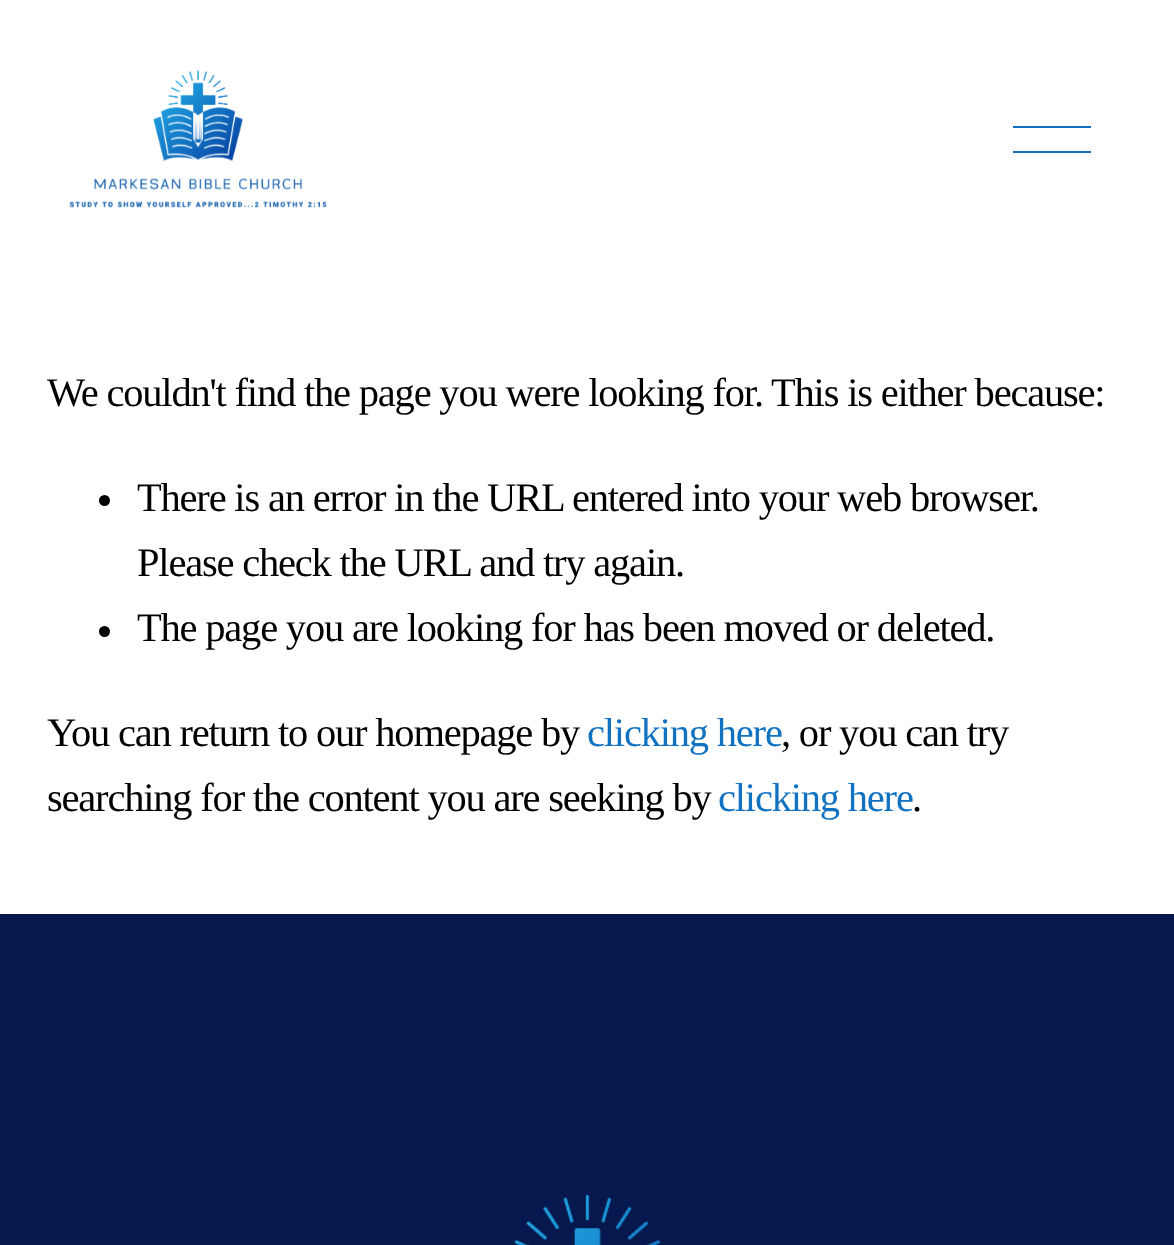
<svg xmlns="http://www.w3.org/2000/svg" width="1174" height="1245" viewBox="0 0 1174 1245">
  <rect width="100%" height="100%" fill="#ffffff"/>
  <image x="69" y="69" width="258" height="139" href="img1.png"/>
  <rect x="1013" y="126" width="78" height="2" fill="#1172c2"/>
  <rect x="1013" y="151" width="78" height="2" fill="#1172c2"/>
  <text x="47" y="406" font-family="Liberation Serif" font-size="40.5" letter-spacing="-1.2" fill="#000000">We couldn't find the page you were looking for. This is either because:</text>
  <circle cx="104.5" cy="500.5" r="5.5" fill="#000000"/>
  <text x="137" y="511" font-family="Liberation Serif" font-size="40.5" letter-spacing="-1.2" fill="#000000">There is an error in the URL entered into your web browser.</text>
  <text x="137" y="576" font-family="Liberation Serif" font-size="40.5" letter-spacing="-1.2" fill="#000000">Please check the URL and try again.</text>
  <circle cx="104.5" cy="631.5" r="5.5" fill="#000000"/>
  <text x="137" y="641" font-family="Liberation Serif" font-size="40.5" letter-spacing="-1.2" fill="#000000">The page you are looking for has been moved or deleted.</text>
  <text x="47" y="746" font-family="Liberation Serif" font-size="40.5" letter-spacing="-1.2" fill="#000000">You can return to our homepage by</text>
  <text x="587" y="746" font-family="Liberation Serif" font-size="40.5" letter-spacing="-1.2" fill="#1172c2">clicking here</text>
  <text x="781" y="746" font-family="Liberation Serif" font-size="40.5" letter-spacing="-1.2" fill="#000000">, or you can try</text>
  <text x="47" y="811" font-family="Liberation Serif" font-size="40.5" letter-spacing="-1.2" fill="#000000">searching for the content you are seeking by</text>
  <text x="718" y="811" font-family="Liberation Serif" font-size="40.5" letter-spacing="-1.2" fill="#1172c2">clicking here</text>
  <text x="912" y="811" font-family="Liberation Serif" font-size="40.5" letter-spacing="-1.2" fill="#000000">.</text>
  <rect x="0" y="914" width="1174" height="331" fill="#07184e"/>
  <image x="514" y="1194" width="147" height="51" href="img2.png"/>
</svg>
